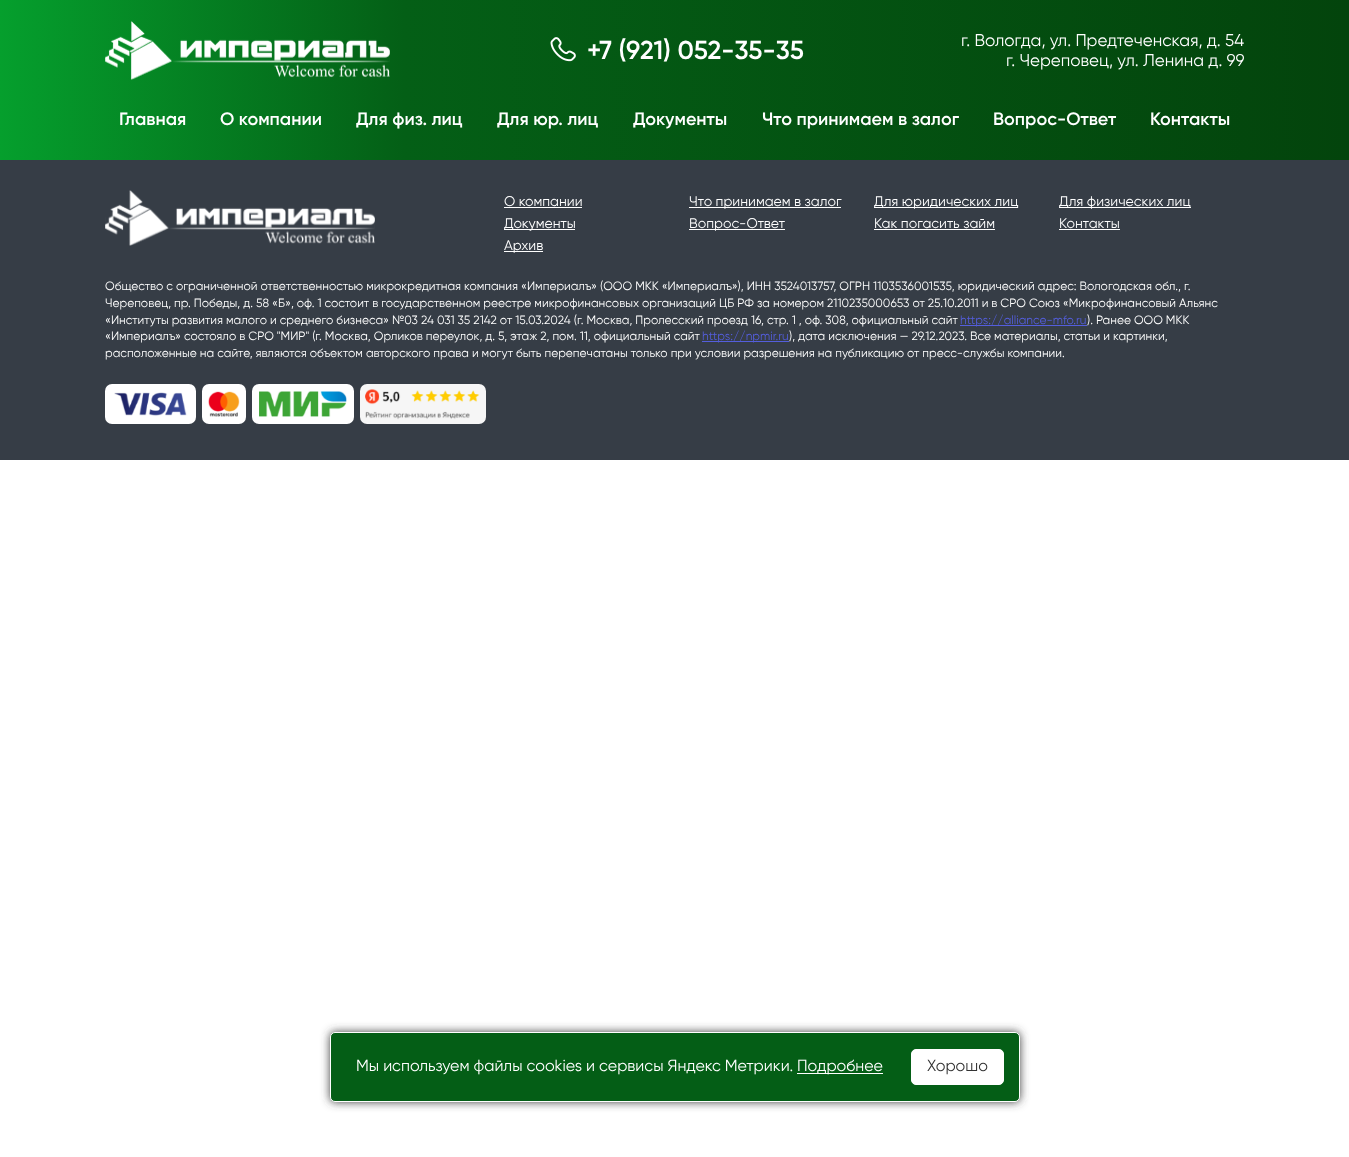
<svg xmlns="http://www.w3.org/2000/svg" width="1349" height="1157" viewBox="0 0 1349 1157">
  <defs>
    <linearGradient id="g1" gradientUnits="userSpaceOnUse" x1="0" y1="80" x2="1349" y2="80"><stop offset="0" stop-color="#059f2d"/><stop offset="0.3" stop-color="#045f16"/><stop offset="1" stop-color="#03440c"/></linearGradient>
    <filter id="blur1" x="-50%" y="-200%" width="200%" height="500%"><feGaussianBlur stdDeviation="5"/></filter>
  </defs>
  <rect width="100%" height="100%" fill="#ffffff"/>
  <rect x="0" y="0" width="1349" height="160" fill="url(#g1)"/>
  <image x="105" y="21" width="285" height="59" href="img1.png"/>
  <image x="550" y="37" width="26" height="25" href="img2.png"/>
  <text x="587" y="59" font-family="Gilroy" font-size="26" font-weight="600" fill="#ffffff">+7 (921) 052-35-35</text>
  <text x="961" y="46" font-family="Gilroy" font-size="17" fill="#ffffff">г. Вологда, ул. Предтеченская, д. 54</text>
  <text x="1006" y="66" font-family="Gilroy" font-size="17" fill="#ffffff">г. Череповец, ул. Ленина д. 99</text>
  <text x="119" y="125" font-family="Gilroy" font-size="18" font-weight="600" fill="#ffffff">Главная</text>
  <text x="220" y="125" font-family="Gilroy" font-size="18" font-weight="600" fill="#ffffff">О компании</text>
  <text x="356" y="125" font-family="Gilroy" font-size="18" font-weight="600" fill="#ffffff">Для физ. лиц</text>
  <text x="497" y="125" font-family="Gilroy" font-size="18" font-weight="600" fill="#ffffff">Для юр. лиц</text>
  <text x="633" y="125" font-family="Gilroy" font-size="18" font-weight="600" fill="#ffffff">Документы</text>
  <text x="762" y="125" font-family="Gilroy" font-size="18" font-weight="600" fill="#ffffff">Что принимаем в залог</text>
  <text x="993" y="125" font-family="Gilroy" font-size="18" font-weight="600" fill="#ffffff">Вопрос-Ответ</text>
  <text x="1150" y="125" font-family="Gilroy" font-size="18" font-weight="600" fill="#ffffff">Контакты</text>
  <rect x="0" y="160" width="1349" height="300" fill="#363d46"/>
  <image x="105" y="190" width="270" height="56" href="img3.png"/>
  <text x="504" y="206" font-family="Gilroy" font-size="14" fill="#ffffff">О компании</text>
  <rect x="504" y="207" width="78" height="1" fill="#ffffff"/>
  <rect x="689" y="207" width="152" height="1" fill="#ffffff"/>
  <text x="689" y="206" font-family="Gilroy" font-size="14" fill="#ffffff">Что принимаем в залог</text>
  <rect x="874" y="207" width="144" height="1" fill="#ffffff"/>
  <text x="874" y="206" font-family="Gilroy" font-size="14" fill="#ffffff">Для юридических лиц</text>
  <rect x="1059" y="207" width="132" height="1" fill="#ffffff"/>
  <text x="1059" y="206" font-family="Gilroy" font-size="14" fill="#ffffff">Для физических лиц</text>
  <rect x="504" y="229" width="71" height="1" fill="#ffffff"/>
  <text x="504" y="228" font-family="Gilroy" font-size="14" fill="#ffffff">Документы</text>
  <rect x="689" y="229" width="96" height="1" fill="#ffffff"/>
  <text x="689" y="228" font-family="Gilroy" font-size="14" fill="#ffffff">Вопрос-Ответ</text>
  <text x="874" y="228" font-family="Gilroy" font-size="14" fill="#ffffff">Как погасить займ</text>
  <rect x="874" y="229" width="121" height="1" fill="#ffffff"/>
  <text x="1059" y="228" font-family="Gilroy" font-size="14" fill="#ffffff">Контакты</text>
  <rect x="1059" y="229" width="61" height="1" fill="#ffffff"/>
  <rect x="504" y="251" width="39" height="1" fill="#ffffff"/>
  <text x="504" y="250" font-family="Gilroy" font-size="14" fill="#ffffff">Архив</text>
  <text x="105" y="290" font-family="Gilroy" font-size="12" fill="#ffffff">Общество с ограниченной ответственностью микрокредитная компания «Империалъ» (ООО МКК «Империалъ»), ИНН 3524013757, ОГРН 1103536001535, юридический адрес: Вологодская обл., г.</text>
  <text x="105" y="307" font-family="Gilroy" font-size="12" fill="#ffffff">Череповец, пр. Победы, д. 58 «Б», оф. 1 состоит в государственном реестре микрофинансовых организаций ЦБ РФ за номером 2110235000653 от 25.10.2011 и в СРО Союз «Микрофинансовый Альянс</text>
  <text x="105" y="324" font-family="Gilroy" font-size="12" fill="#ffffff">«Институты развития малого и среднего бизнеса» №03 24 031 35 2142 от 15.03.2024 (г. Москва, Пролесский проезд 16, стр. 1 , оф. 308, официальный сайт</text>
  <rect x="960" y="325" width="127" height="1" fill="#545edd"/>
  <text x="960" y="324" font-family="Gilroy" font-size="12" fill="#545edd">https://alliance-mfo.ru</text>
  <text x="1087" y="324" font-family="Gilroy" font-size="12" fill="#ffffff">). Ранее ООО МКК</text>
  <text x="105" y="340" font-family="Gilroy" font-size="12" fill="#ffffff">«Империалъ» состояло в СРО "МИР" (г. Москва, Орликов переулок, д. 5, этаж 2, пом. 11, официальный сайт</text>
  <rect x="702" y="341" width="87" height="1" fill="#545edd"/>
  <text x="702" y="340" font-family="Gilroy" font-size="12" fill="#545edd">https://npmir.ru</text>
  <text x="789" y="340" font-family="Gilroy" font-size="12" fill="#ffffff">), дата исключения — 29.12.2023. Все материалы, статьи и картинки,</text>
  <text x="105" y="357" font-family="Gilroy" font-size="12" fill="#ffffff">расположенные на сайте, являются объектом авторского права и могут быть перепечатаны только при условии разрешения на публикацию от пресс-службы компании.</text>
  <image x="105" y="384" width="91" height="40" href="img4.png"/>
  <image x="202" y="384" width="44" height="40" href="img5.png"/>
  <image x="252" y="384" width="102" height="40" href="img6.png"/>
  <image x="360" y="384" width="126" height="40" href="img7.png"/>
  <rect x="330" y="1032" width="690" height="70" rx="5" fill="#3d3d3d" filter="url(#blur1)"/>
  <rect x="330.5" y="1032.5" width="689" height="69" rx="4.5" fill="#045e16" stroke="#ffffff"/>
  <text x="356" y="1071" font-family="Gilroy" font-size="16" fill="#ffffff">Мы используем файлы cookies и сервисы Яндекс Метрики.</text>
  <rect x="797" y="1073" width="86" height="1" fill="#ffffff"/>
  <text x="797" y="1071" font-family="Gilroy" font-size="16" fill="#ffffff">Подробнее</text>
  <rect x="911.5" y="1049.5" width="92" height="35" rx="4.5" fill="#ffffff" stroke="#ffffff"/>
  <text x="927" y="1071" font-family="Gilroy" font-size="16" fill="#333333">Хорошо</text>
</svg>
